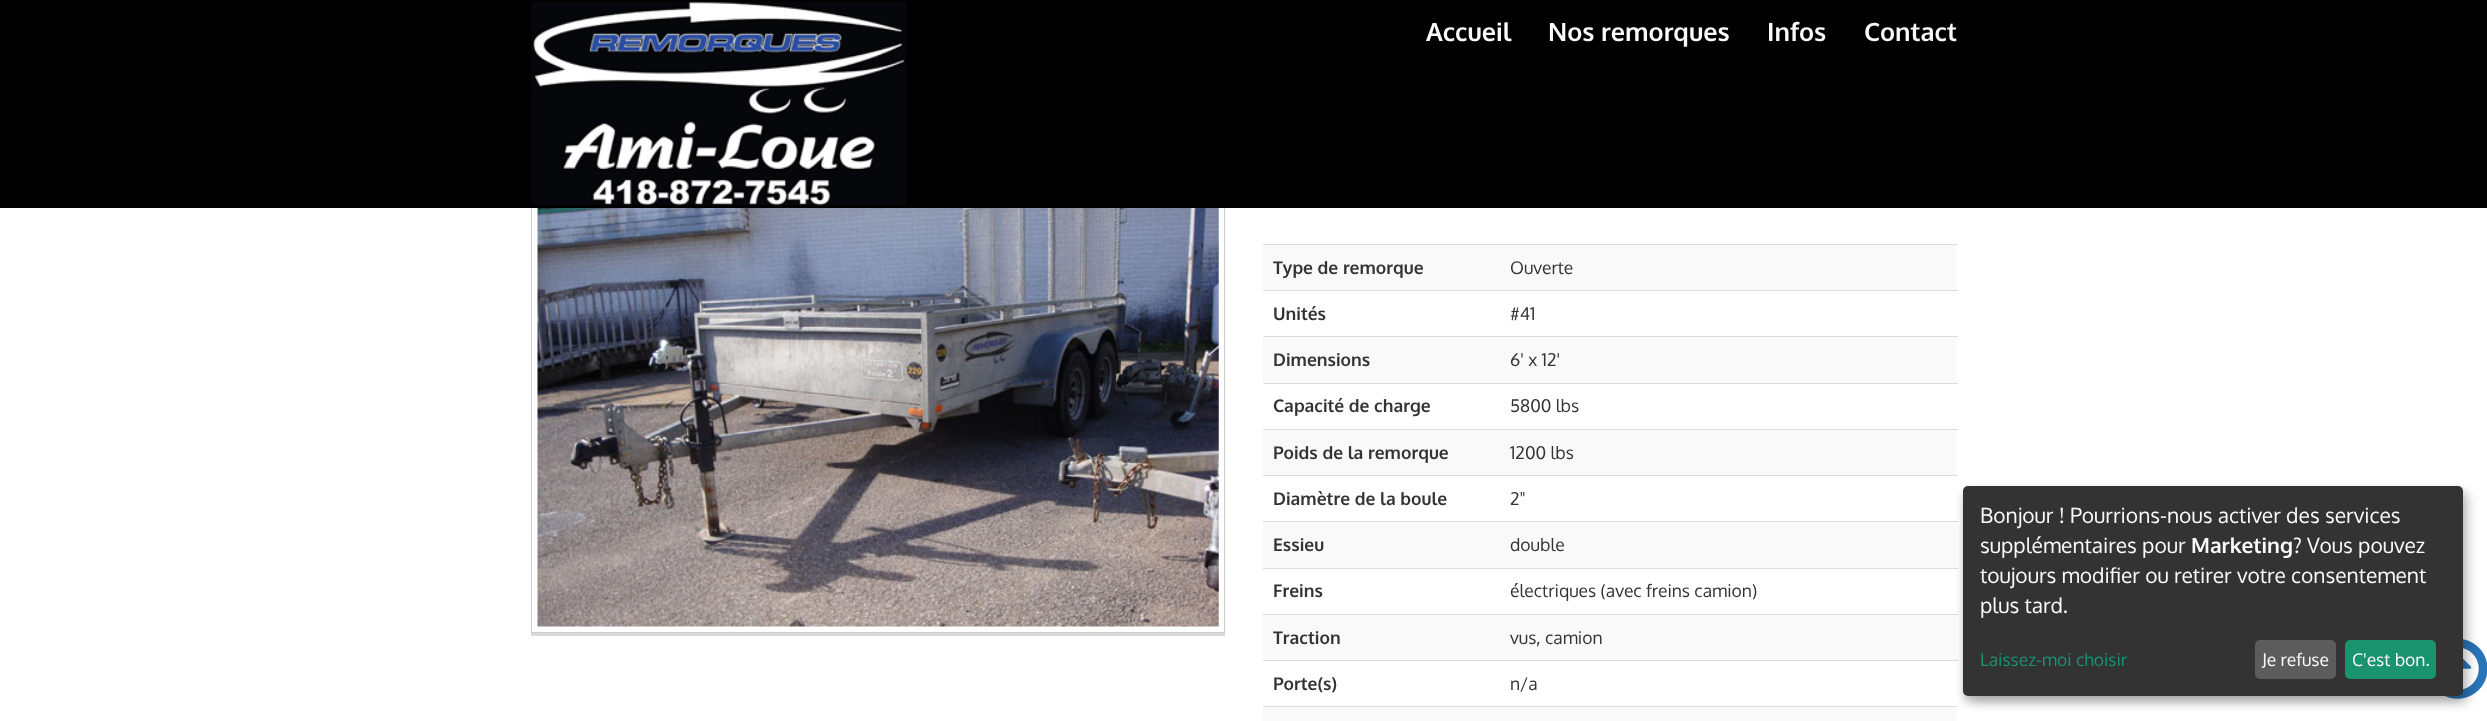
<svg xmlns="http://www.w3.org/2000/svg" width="2487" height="721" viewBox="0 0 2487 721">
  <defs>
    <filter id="blur1" x="-50%" y="-200%" width="200%" height="500%"><feGaussianBlur stdDeviation="0.5"/></filter>
    <filter id="blur2" x="-50%" y="-200%" width="200%" height="500%"><feGaussianBlur stdDeviation="6"/></filter>
    <filter id="blur3" x="-50%" y="-200%" width="200%" height="500%"><feGaussianBlur stdDeviation="4"/></filter>
  </defs>
  <rect width="100%" height="100%" fill="#ffffff"/>
  <rect x="531" y="170" width="694" height="466" fill="#000000" fill-opacity="0.15" filter="url(#blur1)"/>
  <rect x="532" y="208" width="692" height="424" fill="#ffffff"/>
  <rect x="531.5" y="166.5" width="693" height="466" fill="none" stroke="#cccccc"/>
  <rect x="0" y="0" width="2487" height="208" fill="#000000"/>
  <image x="531" y="1" width="375" height="205" href="img1.png"/>
  <text x="1426" y="41" font-family="Oxygen" font-size="25.25" font-weight="bold" fill="#fafafa">Accueil</text>
  <text x="1548" y="41" font-family="Oxygen" font-size="25.25" font-weight="bold" fill="#fafafa">Nos remorques</text>
  <text x="1767" y="41" font-family="Oxygen" font-size="25.25" font-weight="bold" fill="#fafafa">Infos</text>
  <text x="1864" y="41" font-family="Oxygen" font-size="25.25" font-weight="bold" fill="#fafafa">Contact</text>
  <image x="537" y="208" width="682" height="419" href="img2.png"/>
  <rect x="1263" y="245" width="693" height="45" fill="#f9f9f9"/>
  <text x="1273" y="274" font-family="Oxygen" font-size="17.5" font-weight="bold" fill="#333333">Type de remorque</text>
  <rect x="1263" y="244" width="695" height="1" fill="#dddddd"/>
  <text x="1510" y="274" font-family="Oxygen" font-size="17.5" fill="#333333">Ouverte</text>
  <text x="1273" y="320" font-family="Oxygen" font-size="17.5" font-weight="bold" fill="#333333">Unités</text>
  <rect x="1263" y="290" width="695" height="1" fill="#dddddd"/>
  <text x="1510" y="320" font-family="Oxygen" font-size="17.5" fill="#333333">#41</text>
  <rect x="1263" y="337" width="693" height="46" fill="#f9f9f9"/>
  <text x="1273" y="366" font-family="Oxygen" font-size="17.5" font-weight="bold" fill="#333333">Dimensions</text>
  <rect x="1263" y="336" width="695" height="1" fill="#dddddd"/>
  <text x="1510" y="366" font-family="Oxygen" font-size="17.5" fill="#333333">6' x 12'</text>
  <text x="1273" y="412" font-family="Oxygen" font-size="17.5" font-weight="bold" fill="#333333">Capacité de charge</text>
  <rect x="1263" y="383" width="695" height="1" fill="#dddddd"/>
  <text x="1510" y="412" font-family="Oxygen" font-size="17.5" fill="#333333">5800 lbs</text>
  <rect x="1263" y="430" width="693" height="45" fill="#f9f9f9"/>
  <text x="1273" y="459" font-family="Oxygen" font-size="17.5" font-weight="bold" fill="#333333">Poids de la remorque</text>
  <rect x="1263" y="429" width="695" height="1" fill="#dddddd"/>
  <text x="1510" y="459" font-family="Oxygen" font-size="17.5" fill="#333333">1200 lbs</text>
  <text x="1273" y="505" font-family="Oxygen" font-size="17.5" font-weight="bold" fill="#333333">Diamètre de la boule</text>
  <rect x="1263" y="475" width="695" height="1" fill="#dddddd"/>
  <text x="1510" y="505" font-family="Oxygen" font-size="17.5" fill="#333333">2"</text>
  <rect x="1263" y="522" width="693" height="46" fill="#f9f9f9"/>
  <text x="1273" y="551" font-family="Oxygen" font-size="17.5" font-weight="bold" fill="#333333">Essieu</text>
  <rect x="1263" y="521" width="695" height="1" fill="#dddddd"/>
  <text x="1510" y="551" font-family="Oxygen" font-size="17.5" fill="#333333">double</text>
  <text x="1273" y="597" font-family="Oxygen" font-size="17.5" font-weight="bold" fill="#333333">Freins</text>
  <rect x="1263" y="568" width="695" height="1" fill="#dddddd"/>
  <text x="1510" y="597" font-family="Oxygen" font-size="17.5" fill="#333333">électriques (avec freins camion)</text>
  <rect x="1263" y="615" width="693" height="45" fill="#f9f9f9"/>
  <text x="1273" y="644" font-family="Oxygen" font-size="17.5" font-weight="bold" fill="#333333">Traction</text>
  <rect x="1263" y="614" width="695" height="1" fill="#dddddd"/>
  <text x="1510" y="644" font-family="Oxygen" font-size="17.5" fill="#333333">vus, camion</text>
  <text x="1273" y="690" font-family="Oxygen" font-size="17.5" font-weight="bold" fill="#333333">Porte(s)</text>
  <rect x="1263" y="660" width="695" height="1" fill="#dddddd"/>
  <text x="1510" y="690" font-family="Oxygen" font-size="17.5" fill="#333333">n/a</text>
  <rect x="1263" y="707" width="693" height="14" fill="#f9f9f9"/>
  <rect x="1263" y="706" width="695" height="1" fill="#dddddd"/>
  <image x="2445" y="639" width="42" height="60" href="img3.png"/>
  <rect x="1969" y="493" width="500" height="210" rx="5" fill="#000000" fill-opacity="0.19" filter="url(#blur2)"/>
  <rect x="1963" y="491" width="500" height="210" rx="5" fill="#000000" fill-opacity="0.2" filter="url(#blur3)"/>
  <rect x="1963" y="486" width="500" height="210" rx="5" fill="#333333"/>
  <text x="1980" y="523" font-family="Oxygen" font-size="21" fill="#fafafa">Bonjour ! Pourrions-nous activer des services</text>
  <text x="1980" y="553" font-family="Oxygen" font-size="21" fill="#fafafa">supplémentaires pour</text>
  <text x="2191" y="553" font-family="Oxygen" font-size="21" font-weight="bold" fill="#fafafa">Marketing</text>
  <text x="2293" y="553" font-family="Oxygen" font-size="21" fill="#fafafa">? Vous pouvez</text>
  <text x="1980" y="583" font-family="Oxygen" font-size="21" fill="#fafafa">toujours modifier ou retirer votre consentement</text>
  <text x="1980" y="613" font-family="Oxygen" font-size="21" fill="#fafafa">plus tard.</text>
  <text x="1980" y="666" font-family="Oxygen" font-size="17.5" fill="#1a936f">Laissez-moi choisir</text>
  <rect x="2255" y="640" width="81" height="39" rx="5" fill="#5c5c5c"/>
  <text x="2262" y="666" font-family="Oxygen" font-size="17.5" fill="#fafafa">Je refuse</text>
  <rect x="2345" y="640" width="91" height="39" rx="5" fill="#1a936f"/>
  <text x="2352" y="666" font-family="Oxygen" font-size="17.5" fill="#fafafa">C'est bon.</text>
</svg>
